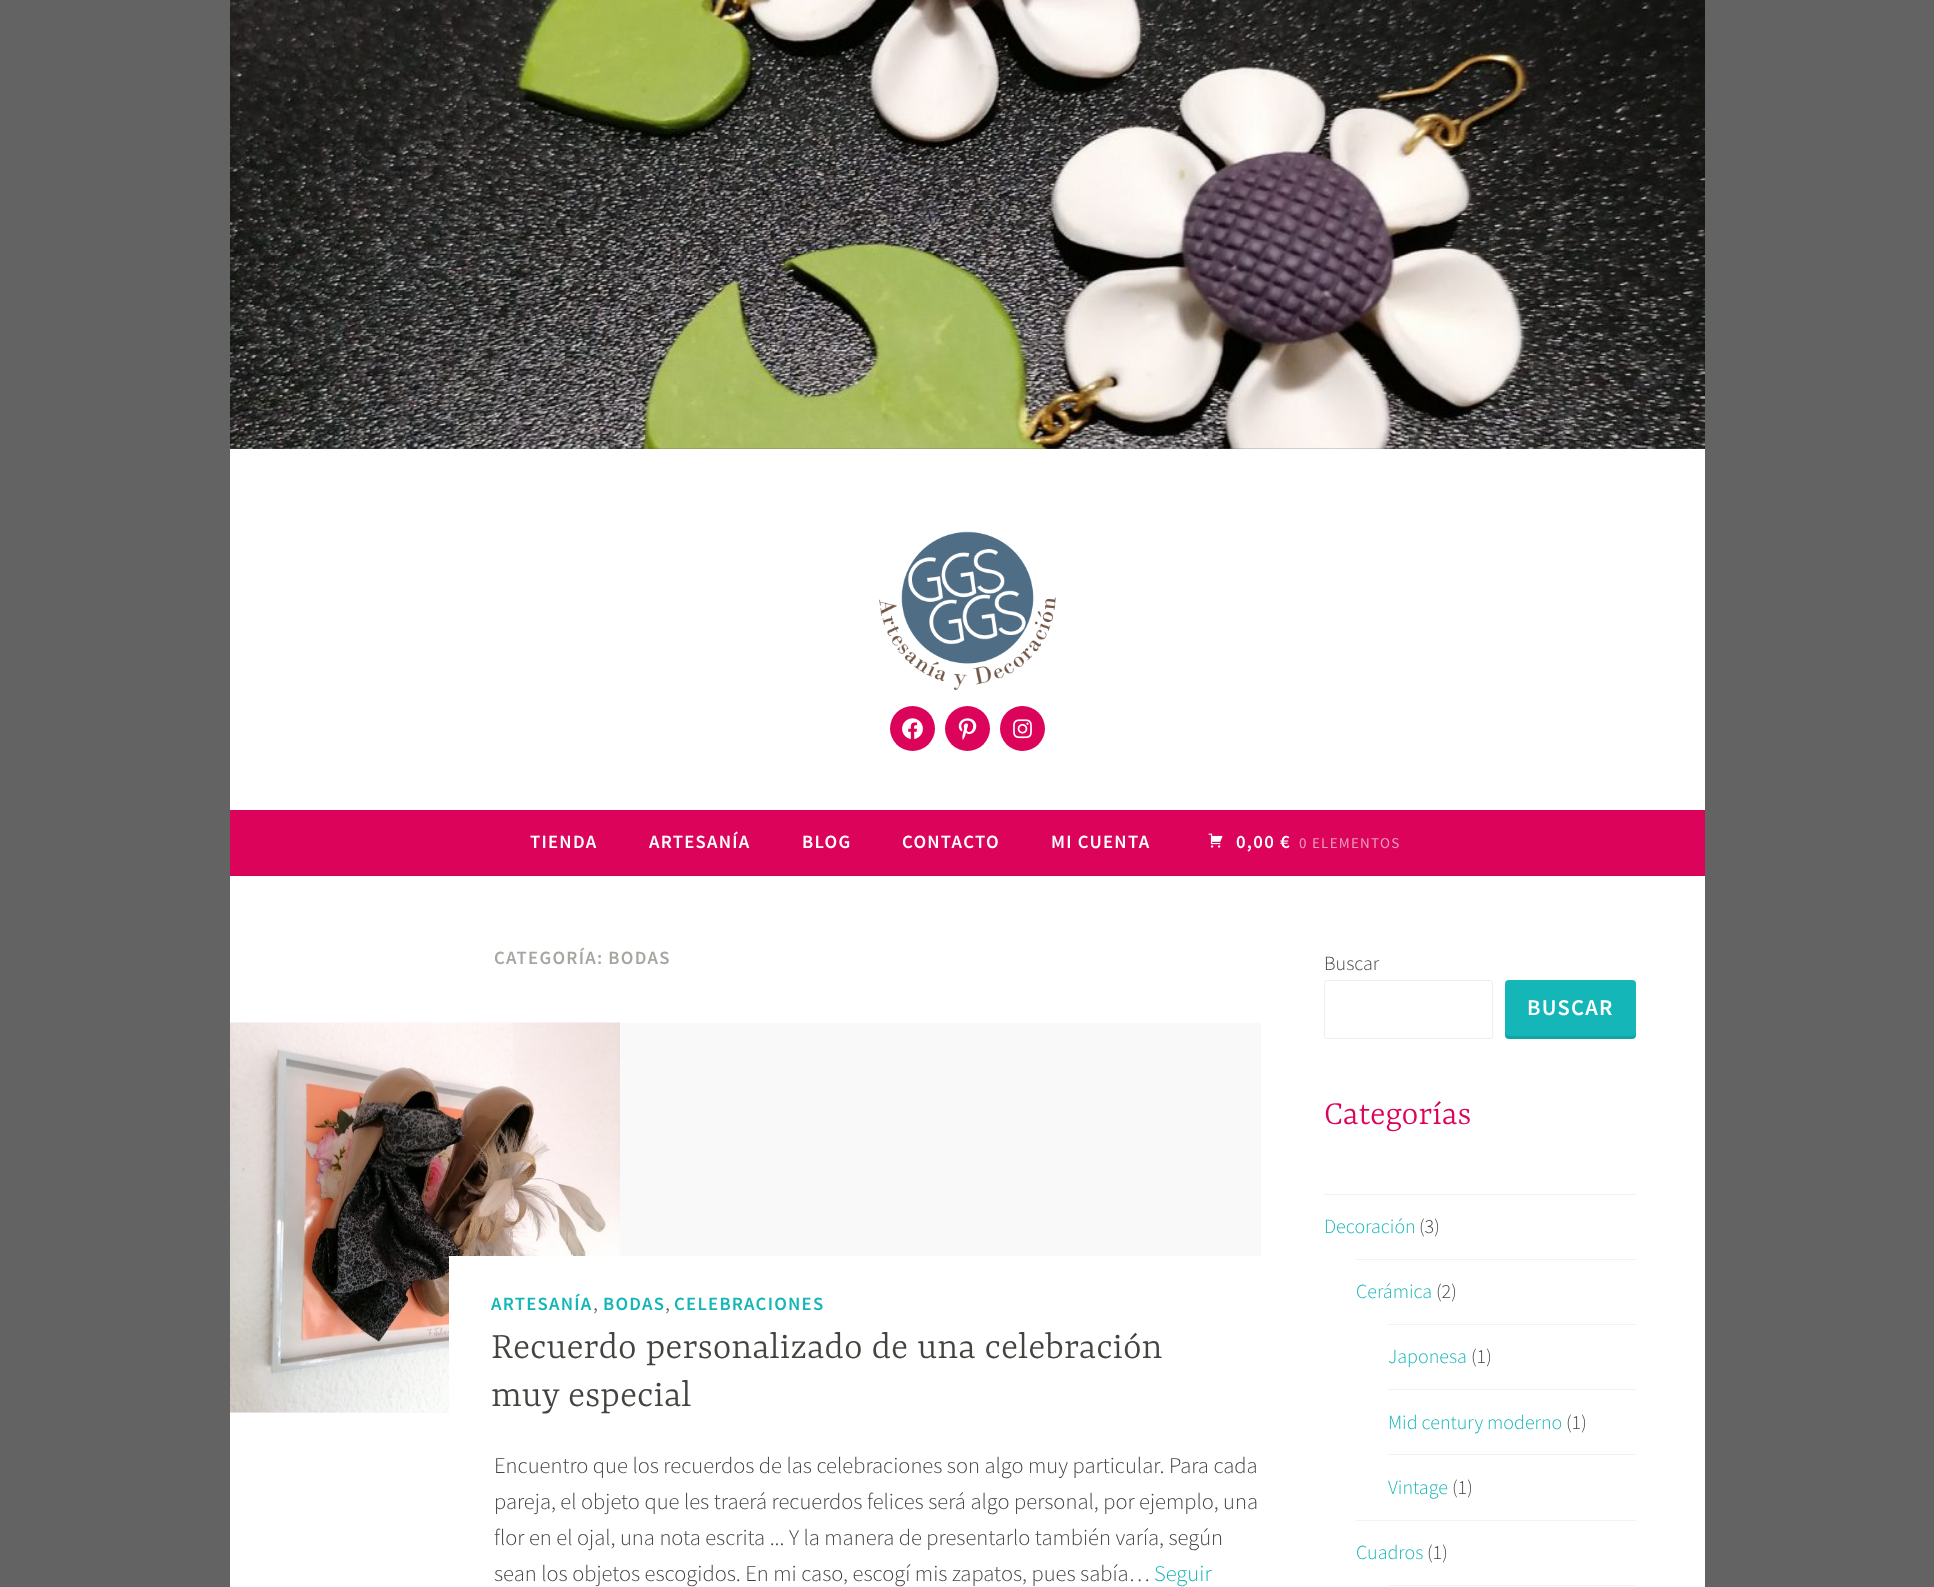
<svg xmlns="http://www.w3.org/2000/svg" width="1934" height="1587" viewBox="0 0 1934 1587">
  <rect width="100%" height="100%" fill="#636363"/>
  <image x="230" y="0" width="1475" height="449" href="img1.png"/>
  <rect x="230" y="449" width="1475" height="361" fill="#ffffff"/>
  <image x="879" y="531" width="177" height="159" href="img2.png"/>
  <circle cx="912.5" cy="728.5" r="22.5" fill="#db045a"/>
  <image x="902" y="718" width="21" height="21" href="img3.png"/>
  <circle cx="967.5" cy="728.5" r="22.5" fill="#db045a"/>
  <image x="958" y="718" width="19" height="22" href="img4.png"/>
  <circle cx="1022.5" cy="728.5" r="22.5" fill="#db045a"/>
  <image x="1013" y="719" width="19" height="20" href="img5.png"/>
  <rect x="230" y="810" width="1475" height="64" fill="#db045a"/>
  <rect x="230" y="874" width="1475" height="2" fill="#d40457"/>
  <text x="530" y="848" font-family="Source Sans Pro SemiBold" font-size="18.75" font-weight="600" letter-spacing="1.25" fill="#ffffff">TIENDA</text>
  <text x="649" y="848" font-family="Source Sans Pro SemiBold" font-size="18.75" font-weight="600" letter-spacing="1.25" fill="#ffffff">ARTESANÍA</text>
  <text x="802" y="848" font-family="Source Sans Pro SemiBold" font-size="18.75" font-weight="600" letter-spacing="1.25" fill="#ffffff">BLOG</text>
  <text x="902" y="848" font-family="Source Sans Pro SemiBold" font-size="18.75" font-weight="600" letter-spacing="1.25" fill="#ffffff">CONTACTO</text>
  <text x="1051" y="848" font-family="Source Sans Pro SemiBold" font-size="18.75" font-weight="600" letter-spacing="1.25" fill="#ffffff">MI CUENTA</text>
  <image x="1208" y="833" width="15" height="15" href="img6.png"/>
  <text x="1236" y="848" font-family="Source Sans Pro SemiBold" font-size="18.75" font-weight="600" letter-spacing="1.25" fill="#ffffff">0,00 €</text>
  <text x="1299" y="848" font-family="Source Sans Pro" font-size="15" letter-spacing="1.25" fill="#f19bbd">0 ELEMENTOS</text>
  <rect x="230" y="876" width="1475" height="711" fill="#ffffff"/>
  <text x="494" y="964" font-family="Source Sans Pro SemiBold" font-size="18.75" font-weight="600" letter-spacing="1.25" fill="#a8a6a1">CATEGORÍA: BODAS</text>
  <rect x="230" y="1023" width="1031" height="390" fill="#f8f9f8"/>
  <image x="230" y="1022" width="390" height="391" href="img7.png"/>
  <rect x="449" y="1256" width="812" height="157" fill="#ffffff"/>
  <text x="491" y="1310" font-family="Source Sans Pro SemiBold" font-size="18.75" font-weight="600" letter-spacing="1.25" fill="#15b6b8">ARTESANÍA</text>
  <text x="593" y="1310" font-family="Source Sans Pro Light" font-size="22.5" font-weight="300" fill="#444340">,</text>
  <text x="603" y="1310" font-family="Source Sans Pro SemiBold" font-size="18.75" font-weight="600" letter-spacing="1.25" fill="#15b6b8">BODAS</text>
  <text x="665" y="1310" font-family="Source Sans Pro Light" font-size="22.5" font-weight="300" fill="#444340">,</text>
  <text x="674" y="1310" font-family="Source Sans Pro SemiBold" font-size="18.75" font-weight="600" letter-spacing="1.25" fill="#15b6b8">CELEBRACIONES</text>
  <text x="491" y="1358" font-family="Yrsa" font-size="40" font-weight="300" fill="#444340">Recuerdo personalizado de una celebración</text>
  <text x="491" y="1406" font-family="Yrsa" font-size="40" font-weight="300" fill="#444340">muy especial</text>
  <text x="494" y="1473" font-family="Source Sans Pro Light" font-size="22.5" font-weight="300" fill="#444340">Encuentro que los recuerdos de las celebraciones son algo muy particular. Para cada</text>
  <text x="494" y="1509" font-family="Source Sans Pro Light" font-size="22.5" font-weight="300" fill="#444340">pareja, el objeto que les traerá recuerdos felices será algo personal, por ejemplo, una</text>
  <text x="494" y="1545" font-family="Source Sans Pro Light" font-size="22.5" font-weight="300" fill="#444340">flor en el ojal, una nota escrita ... Y la manera de presentarlo también varía, según</text>
  <text x="494" y="1581" font-family="Source Sans Pro Light" font-size="22.5" font-weight="300" fill="#444340">sean los objetos escogidos. En mi caso, escogí mis zapatos, pues sabía…</text>
  <text x="1154" y="1581" font-family="Source Sans Pro Light" font-size="22.5" font-weight="300" fill="#15b6b8">Seguir</text>
  <text x="1324" y="970" font-family="Source Sans Pro Light" font-size="20" font-weight="300" fill="#444340">Buscar</text>
  <rect x="1324.5" y="980.5" width="168" height="58" rx="2" fill="none" stroke="#eeeeee"/>
  <rect x="1505" y="980" width="131" height="59" rx="4" fill="#15b6b8"/>
  <path d="M1505 1032V1035C1505 1037 1507 1039 1509 1039H1632C1634 1039 1636 1037 1636 1035V1032C1636 1035 1635 1036 1632 1036H1509C1507 1036 1505 1035 1505 1032Z" fill="#000000" fill-opacity="0.1"/>
  <text x="1527" y="1015" font-family="Source Sans Pro SemiBold" font-size="22.5" font-weight="600" letter-spacing="1.25" fill="#ffffff">BUSCAR</text>
  <text x="1324" y="1124" font-family="Yrsa" font-size="36.25" font-weight="300" fill="#db045a">Categorías</text>
  <rect x="1324" y="1194" width="312" height="1" fill="#f2f2f2"/>
  <text x="1324" y="1233" font-family="Source Sans Pro Light" font-size="20" font-weight="300" fill="#15b6b8">Decoración</text>
  <text x="1419" y="1233" font-family="Source Sans Pro Light" font-size="20" font-weight="300" fill="#444340">(3)</text>
  <rect x="1356" y="1259" width="280" height="1" fill="#f2f2f2"/>
  <text x="1356" y="1298" font-family="Source Sans Pro Light" font-size="20" font-weight="300" fill="#15b6b8">Cerámica</text>
  <text x="1436" y="1298" font-family="Source Sans Pro Light" font-size="20" font-weight="300" fill="#444340">(2)</text>
  <rect x="1388" y="1324" width="248" height="1" fill="#f2f2f2"/>
  <text x="1388" y="1363" font-family="Source Sans Pro Light" font-size="20" font-weight="300" fill="#15b6b8">Japonesa</text>
  <text x="1471" y="1363" font-family="Source Sans Pro Light" font-size="20" font-weight="300" fill="#444340">(1)</text>
  <rect x="1388" y="1389" width="248" height="1" fill="#f2f2f2"/>
  <text x="1388" y="1429" font-family="Source Sans Pro Light" font-size="20" font-weight="300" fill="#15b6b8">Mid century moderno</text>
  <text x="1566" y="1429" font-family="Source Sans Pro Light" font-size="20" font-weight="300" fill="#444340">(1)</text>
  <rect x="1388" y="1454" width="248" height="1" fill="#f2f2f2"/>
  <text x="1388" y="1494" font-family="Source Sans Pro Light" font-size="20" font-weight="300" fill="#15b6b8">Vintage</text>
  <text x="1452" y="1494" font-family="Source Sans Pro Light" font-size="20" font-weight="300" fill="#444340">(1)</text>
  <rect x="1356" y="1520" width="280" height="1" fill="#f2f2f2"/>
  <text x="1356" y="1559" font-family="Source Sans Pro Light" font-size="20" font-weight="300" fill="#15b6b8">Cuadros</text>
  <text x="1427" y="1559" font-family="Source Sans Pro Light" font-size="20" font-weight="300" fill="#444340">(1)</text>
  <rect x="1388" y="1585" width="248" height="1" fill="#f2f2f2"/>
</svg>
